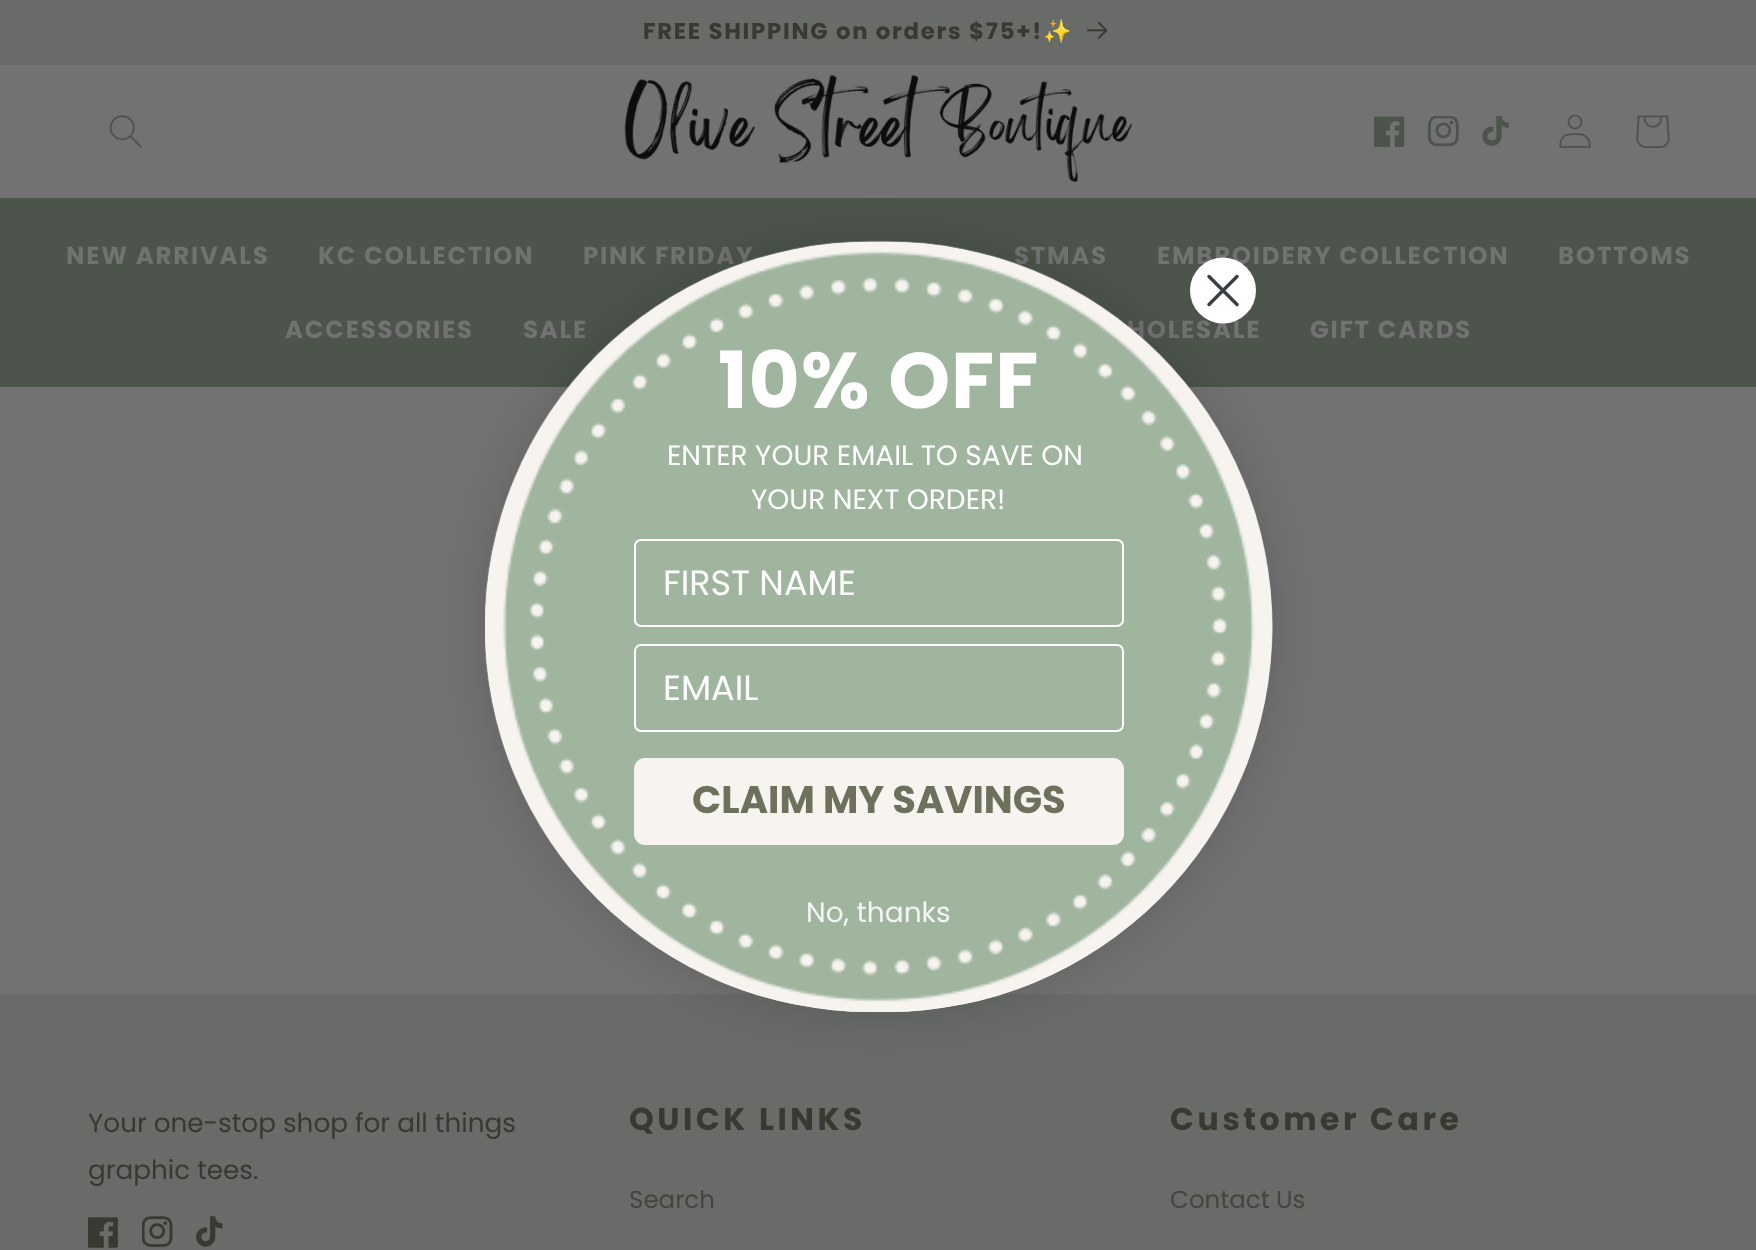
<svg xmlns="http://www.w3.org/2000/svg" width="1756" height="1250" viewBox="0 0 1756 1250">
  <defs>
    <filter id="blur1" x="-50%" y="-200%" width="200%" height="500%"><feGaussianBlur stdDeviation="26"/></filter>
  </defs>
  <rect width="100%" height="100%" fill="#727272"/>
  <rect x="0" y="0" width="1756" height="65" fill="#686b68"/>
  <text x="643" y="39" font-family="Poppins" font-size="22.75" font-weight="bold" letter-spacing="1.75" fill="#383930">FREE SHIPPING on orders $75+!</text>
  <text x="1043" y="39" font-family="Noto Color Emoji" font-size="22.75" font-weight="bold" letter-spacing="1.75" fill="#383930">✨</text>
  <image x="1087" y="22" width="21" height="17" href="img1.png"/>
  <image x="109" y="115" width="33" height="33" href="img2.png"/>
  <image x="624" y="75" width="509" height="107" href="img3.png"/>
  <image x="1374" y="116" width="31" height="31" href="img4.png"/>
  <image x="1428" y="116" width="31" height="31" href="img5.png"/>
  <image x="1482" y="116" width="27" height="30" href="img6.png"/>
  <image x="1559" y="114" width="32" height="34" href="img7.png"/>
  <image x="1636" y="115" width="34" height="34" href="img8.png"/>
  <rect x="0" y="198" width="1756" height="189" fill="#4c544b"/>
  <text x="66" y="264" font-family="Poppins" font-size="24.5" font-weight="bold" letter-spacing="1.75" fill="#727272">NEW ARRIVALS</text>
  <text x="318" y="264" font-family="Poppins" font-size="24.5" font-weight="bold" letter-spacing="1.75" fill="#727272">KC COLLECTION</text>
  <text x="583" y="264" font-family="Poppins" font-size="24.5" font-weight="bold" letter-spacing="1.75" fill="#727272">PINK FRIDAY</text>
  <text x="1014" y="264" font-family="Poppins" font-size="24.5" font-weight="bold" letter-spacing="1.75" fill="#727272">STMAS</text>
  <text x="1157" y="264" font-family="Poppins" font-size="24.5" font-weight="bold" letter-spacing="1.75" fill="#727272">EMBROIDERY COLLECTION</text>
  <text x="1558" y="264" font-family="Poppins" font-size="24.5" font-weight="bold" letter-spacing="1.75" fill="#727272">BOTTOMS</text>
  <text x="285" y="338" font-family="Poppins" font-size="24.5" font-weight="bold" letter-spacing="1.75" fill="#727272">ACCESSORIES</text>
  <text x="523" y="338" font-family="Poppins" font-size="24.5" font-weight="bold" letter-spacing="1.75" fill="#727272">SALE</text>
  <text x="1127" y="338" font-family="Poppins" font-size="24.5" font-weight="bold" letter-spacing="1.75" fill="#727272">HOLESALE</text>
  <text x="1310" y="338" font-family="Poppins" font-size="24.5" font-weight="bold" letter-spacing="1.75" fill="#727272">GIFT CARDS</text>
  <rect x="0" y="994" width="1756" height="256" fill="#686b68"/>
  <rect x="485" y="242" width="787" height="770" rx="385" fill="#000000" fill-opacity="0.15" filter="url(#blur1)"/>
  <rect x="485" y="242" width="787" height="770" rx="385" fill="#f7f4f0"/>
  <image x="485" y="240" width="788" height="772" href="img9.png"/>
  <circle cx="1223" cy="290.5" r="33" fill="#ffffff"/>
  <path d="M1209 276.5L1237 304.5M1209 304.5L1237 276.5Z" fill="none" stroke="#373f47" stroke-width="3.5" stroke-linecap="round" stroke-linejoin="round"/>
  <text x="718" y="408" font-family="Poppins" font-size="78.75" font-weight="bold" letter-spacing="1" fill="#ffffff">10% OFF</text>
  <text x="667" y="465" font-family="Poppins" font-size="28" fill="#ffffff">ENTER YOUR EMAIL TO SAVE ON</text>
  <text x="751" y="509" font-family="Poppins" font-size="28" fill="#ffffff">YOUR NEXT ORDER!</text>
  <rect x="635" y="540" width="488" height="86" rx="6" fill="none" stroke="#ffffff" stroke-width="2"/>
  <text x="663" y="595" font-family="Poppins" font-size="35" fill="#ffffff">FIRST NAME</text>
  <rect x="635" y="645" width="488" height="86" rx="6" fill="none" stroke="#ffffff" stroke-width="2"/>
  <text x="663" y="700" font-family="Poppins" font-size="35" fill="#ffffff">EMAIL</text>
  <rect x="634" y="758" width="490" height="87" rx="11" fill="#f7f4f0"/>
  <text x="692" y="813" font-family="Poppins" font-size="38.5" font-weight="bold" fill="#6d705a">CLAIM MY SAVINGS</text>
  <text x="806" y="922" font-family="Poppins" font-size="28" fill="#f3f5f6">No, thanks</text>
  <text x="88" y="1132" font-family="Poppins" font-size="26.25" fill="#383930">Your one-stop shop for all things</text>
  <text x="88" y="1179" font-family="Poppins" font-size="26.25" fill="#383930">graphic tees.</text>
  <image x="88" y="1217" width="30" height="31" href="img10.png"/>
  <image x="142" y="1216" width="31" height="31" href="img11.png"/>
  <image x="196" y="1216" width="27" height="31" href="img12.png"/>
  <text x="629" y="1130" font-family="Poppins" font-size="31.5" font-weight="bold" letter-spacing="3.5" fill="#383930">QUICK LINKS</text>
  <text x="629" y="1208" font-family="Poppins" font-size="24.5" fill="#44453e">Search</text>
  <text x="1170" y="1130" font-family="Poppins" font-size="31.5" font-weight="bold" letter-spacing="3.5" fill="#383930">Customer Care</text>
  <text x="1170" y="1208" font-family="Poppins" font-size="24.5" fill="#44453e">Contact Us</text>
</svg>
